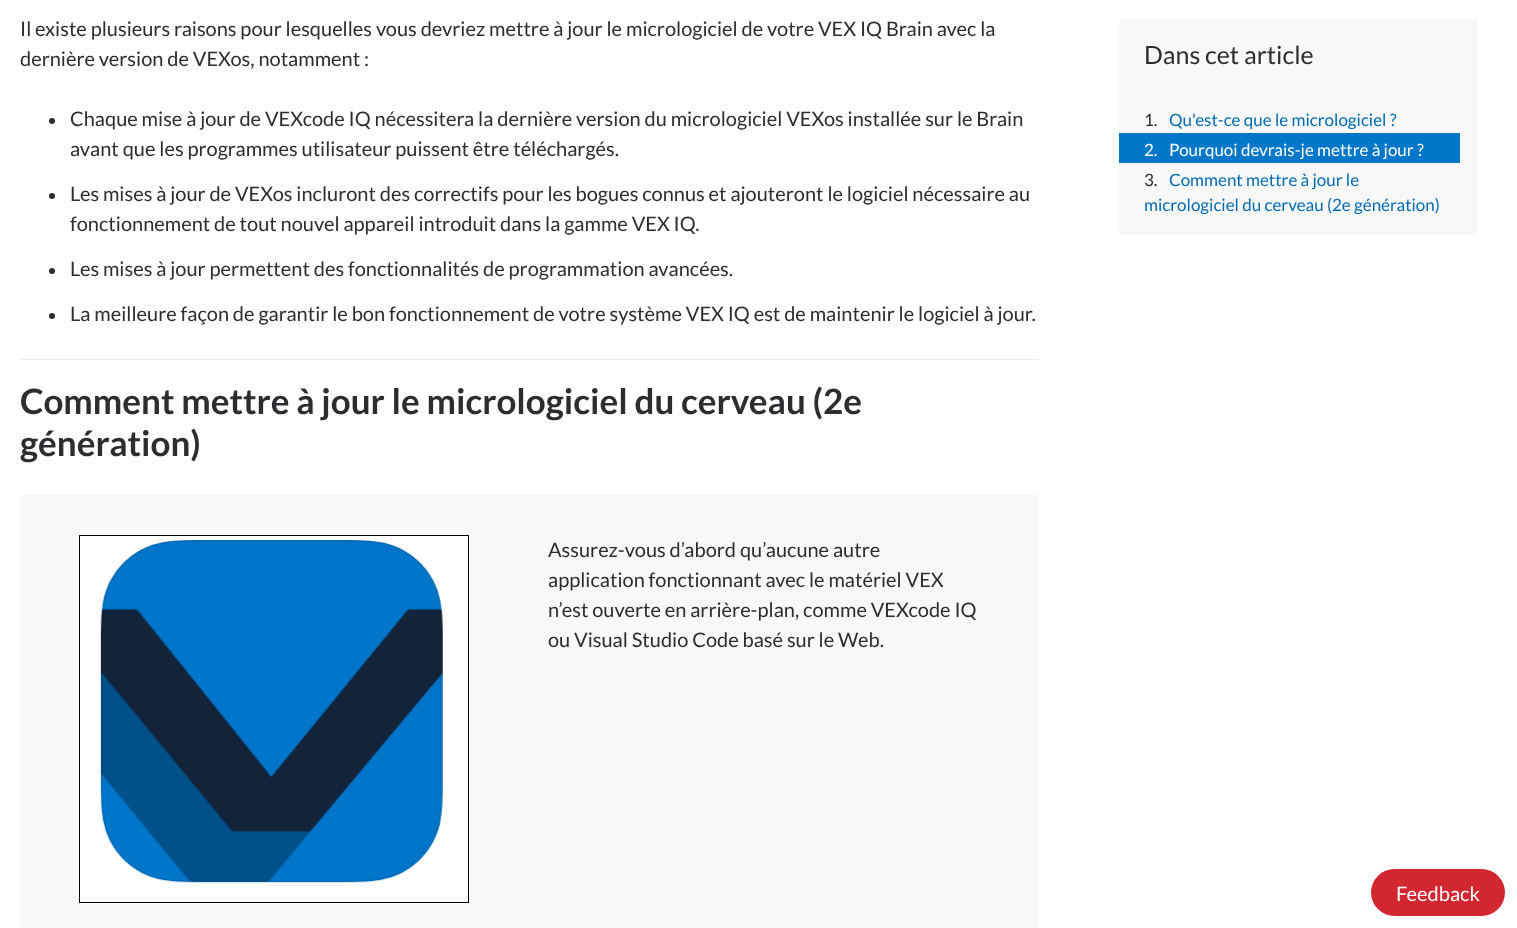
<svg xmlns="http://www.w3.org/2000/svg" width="1517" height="928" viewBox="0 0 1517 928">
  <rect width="100%" height="100%" fill="#ffffff"/>
  <text x="20" y="36" font-family="Lato" font-size="20" fill="#2c2d30">Il existe plusieurs raisons pour lesquelles vous devriez mettre à jour le micrologiciel de votre VEX IQ Brain avec la</text>
  <text x="20" y="66" font-family="Lato" font-size="20" fill="#2c2d30">dernière version de VEXos, notamment :</text>
  <circle cx="52" cy="121" r="3" fill="#2c2d30"/>
  <text x="70" y="126" font-family="Lato" font-size="20" fill="#2c2d30">Chaque mise à jour de VEXcode IQ nécessitera la dernière version du micrologiciel VEXos installée sur le Brain</text>
  <text x="70" y="156" font-family="Lato" font-size="20" fill="#2c2d30">avant que les programmes utilisateur puissent être téléchargés.</text>
  <circle cx="52" cy="196" r="3" fill="#2c2d30"/>
  <text x="70" y="201" font-family="Lato" font-size="20" fill="#2c2d30">Les mises à jour de VEXos incluront des correctifs pour les bogues connus et ajouteront le logiciel nécessaire au</text>
  <text x="70" y="231" font-family="Lato" font-size="20" fill="#2c2d30">fonctionnement de tout nouvel appareil introduit dans la gamme VEX IQ.</text>
  <circle cx="52" cy="271" r="3" fill="#2c2d30"/>
  <text x="70" y="276" font-family="Lato" font-size="20" fill="#2c2d30">Les mises à jour permettent des fonctionnalités de programmation avancées.</text>
  <circle cx="52" cy="316" r="3" fill="#2c2d30"/>
  <text x="70" y="321" font-family="Lato" font-size="20" fill="#2c2d30">La meilleure façon de garantir le bon fonctionnement de votre système VEX IQ est de maintenir le logiciel à jour.</text>
  <rect x="20" y="359" width="1019" height="1" fill="#eceeef"/>
  <text x="20" y="414" font-family="Lato" font-size="35" font-weight="bold" fill="#2c2d30">Comment mettre à jour le micrologiciel du cerveau (2e</text>
  <text x="20" y="456" font-family="Lato" font-size="35" font-weight="bold" fill="#2c2d30">génération)</text>
  <rect x="20" y="495" width="1019" height="433" fill="#f8f8f8"/>
  <rect x="79.5" y="535.5" width="389" height="367" fill="none" stroke="#000000"/>
  <image x="80" y="536" width="387" height="365" href="img1.png"/>
  <text x="548" y="557" font-family="Lato" font-size="20" fill="#2c2d30">Assurez-vous d’abord qu’aucune autre</text>
  <text x="548" y="587" font-family="Lato" font-size="20" fill="#2c2d30">application fonctionnant avec le matériel VEX</text>
  <text x="548" y="617" font-family="Lato" font-size="20" fill="#2c2d30">n’est ouverte en arrière-plan, comme VEXcode IQ</text>
  <text x="548" y="647" font-family="Lato" font-size="20" fill="#2c2d30">ou Visual Studio Code basé sur le Web.</text>
  <rect x="1119" y="19" width="359" height="216" fill="#f8f8f8"/>
  <text x="1144" y="64" font-family="Lato" font-size="25" fill="#2c2d30">Dans cet article</text>
  <text x="1144" y="126" font-family="Lato" font-size="17" fill="#2c2d30">1.</text>
  <text x="1169" y="126" font-family="Lato" font-size="17" fill="#006bb4">Qu'est-ce que le micrologiciel ?</text>
  <rect x="1119" y="133" width="341" height="30" fill="#0077c8"/>
  <text x="1144" y="156" font-family="Lato" font-size="17" fill="#ffffff">2.</text>
  <text x="1169" y="156" font-family="Lato" font-size="17" fill="#ffffff">Pourquoi devrais-je mettre à jour ?</text>
  <text x="1144" y="186" font-family="Lato" font-size="17" fill="#2c2d30">3.</text>
  <text x="1169" y="186" font-family="Lato" font-size="17" fill="#006bb4">Comment mettre à jour le</text>
  <text x="1144" y="211" font-family="Lato" font-size="17" fill="#006bb4">micrologiciel du cerveau (2e génération)</text>
  <rect x="1371" y="869" width="134" height="47" rx="23.5" fill="#d22630"/>
  <text x="1396" y="901" font-family="Lato" font-size="20" fill="#ffffff">Feedback</text>
</svg>
